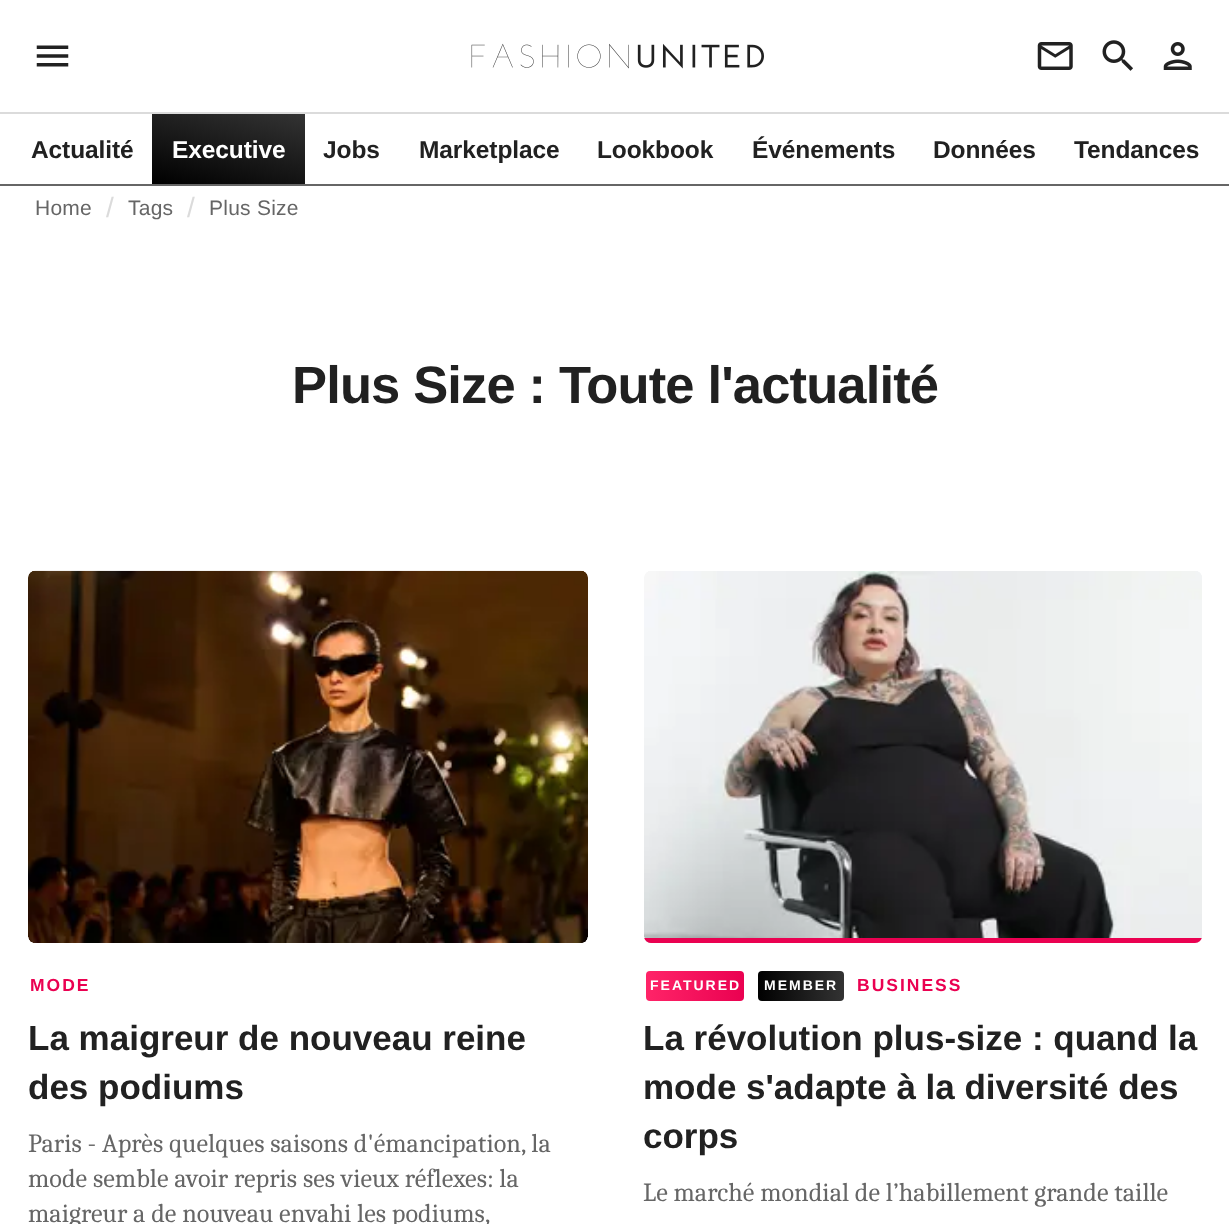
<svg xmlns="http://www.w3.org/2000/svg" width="1229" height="1224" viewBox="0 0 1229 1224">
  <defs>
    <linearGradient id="g1" gradientUnits="userSpaceOnUse" x1="215" y1="200" x2="242" y2="98"><stop offset="0" stop-color="#000000"/><stop offset="1" stop-color="#333333"/></linearGradient>
    <clipPath id="clip1"><rect x="644" y="571" width="558" height="372" rx="7"/></clipPath>
    <linearGradient id="g2" gradientUnits="userSpaceOnUse" x1="646" y1="986" x2="744" y2="986"><stop offset="0" stop-color="#ff2468"/><stop offset="1" stop-color="#ea0151"/></linearGradient>
    <linearGradient id="g3" gradientUnits="userSpaceOnUse" x1="758" y1="986" x2="844" y2="986"><stop offset="0" stop-color="#000000"/><stop offset="1" stop-color="#333333"/></linearGradient>
  </defs>
  <rect width="100%" height="100%" fill="#ffffff"/>
  <rect x="0" y="112" width="1229" height="2" fill="#dbdbdb"/>
  <image x="36" y="45" width="33" height="22" href="img1.png"/>
  <image x="471" y="43" width="293" height="26" href="img2.png"/>
  <image x="1037" y="42" width="36" height="28" href="img3.png"/>
  <image x="1102" y="40" width="31" height="31" href="img4.png"/>
  <image x="1163" y="42" width="29" height="28" href="img5.png"/>
  <rect x="0" y="184" width="1229" height="2" fill="#666666"/>
  <text x="31" y="158" font-family="Liberation Sans" font-size="24.5" font-weight="bold" letter-spacing="-0.1" fill="#212121">Actualité</text>
  <rect x="152" y="114" width="153" height="70" fill="url(#g1)"/>
  <text x="172" y="158" font-family="Liberation Sans" font-size="24.5" font-weight="bold" letter-spacing="-0.1" fill="#ffffff">Executive</text>
  <text x="323" y="158" font-family="Liberation Sans" font-size="24.5" font-weight="bold" letter-spacing="-0.1" fill="#212121">Jobs</text>
  <text x="419" y="158" font-family="Liberation Sans" font-size="24.5" font-weight="bold" letter-spacing="-0.1" fill="#212121">Marketplace</text>
  <text x="597" y="158" font-family="Liberation Sans" font-size="24.5" font-weight="bold" letter-spacing="-0.1" fill="#212121">Lookbook</text>
  <text x="752" y="158" font-family="Liberation Sans" font-size="24.5" font-weight="bold" letter-spacing="-0.1" fill="#212121">Événements</text>
  <text x="933" y="158" font-family="Liberation Sans" font-size="24.5" font-weight="bold" letter-spacing="-0.1" fill="#212121">Données</text>
  <text x="1074" y="158" font-family="Liberation Sans" font-size="24.5" font-weight="bold" letter-spacing="-0.1" fill="#212121">Tendances</text>
  <text x="35" y="215" font-family="Liberation Sans" font-size="21" letter-spacing="0.25" fill="#666666">Home</text>
  <text x="106" y="217" font-family="Liberation Sans" font-size="28" fill="#dbdbdb">/</text>
  <text x="128" y="215" font-family="Liberation Sans" font-size="21" letter-spacing="0.25" fill="#666666">Tags</text>
  <text x="187" y="217" font-family="Liberation Sans" font-size="28" fill="#dbdbdb">/</text>
  <text x="209" y="215" font-family="Liberation Sans" font-size="21" letter-spacing="0.25" fill="#666666">Plus Size</text>
  <text x="292" y="403" font-family="Liberation Sans" font-size="52.5" font-weight="bold" letter-spacing="-0.85" fill="#212121">Plus Size : Toute l'actualité</text>
  <image x="28" y="570" width="560" height="373" href="img6.png"/>
  <text x="30" y="991" font-family="Liberation Sans" font-size="17.5" font-weight="bold" letter-spacing="2" fill="#ea0151">MODE</text>
  <text x="28" y="1050" font-family="Liberation Sans" font-size="35" font-weight="bold" fill="#212121">La maigreur de nouveau reine</text>
  <text x="28" y="1099" font-family="Liberation Sans" font-size="35" font-weight="bold" fill="#212121">des podiums</text>
  <text x="28" y="1152" font-family="Caladea" font-size="26.25" fill="#666666">Paris - Après quelques saisons d'émancipation, la</text>
  <text x="28" y="1187" font-family="Caladea" font-size="26.25" fill="#666666">mode semble avoir repris ses vieux réflexes: la</text>
  <text x="28" y="1222" font-family="Caladea" font-size="26.25" fill="#666666">maigreur a de nouveau envahi les podiums,</text>
  <image x="644" y="571" width="558" height="372" href="img7.png"/>
  <g clip-path="url(#clip1)">
    <rect x="644" y="938" width="558" height="5" fill="#ea0151"/>
  </g>
  <rect x="646" y="971" width="98" height="30" rx="4" fill="url(#g2)"/>
  <text x="650" y="990" font-family="Liberation Sans" font-size="14" font-weight="bold" letter-spacing="2" fill="#ffffff">FEATURED</text>
  <rect x="758" y="971" width="86" height="30" rx="4" fill="url(#g3)"/>
  <text x="764" y="990" font-family="Liberation Sans" font-size="14" font-weight="bold" letter-spacing="2" fill="#ffffff">MEMBER</text>
  <text x="857" y="991" font-family="Liberation Sans" font-size="17.5" font-weight="bold" letter-spacing="2" fill="#ea0151">BUSINESS</text>
  <text x="643" y="1050" font-family="Liberation Sans" font-size="35" font-weight="bold" fill="#212121">La révolution plus-size : quand la</text>
  <text x="643" y="1099" font-family="Liberation Sans" font-size="35" font-weight="bold" fill="#212121">mode s'adapte à la diversité des</text>
  <text x="643" y="1148" font-family="Liberation Sans" font-size="35" font-weight="bold" fill="#212121">corps</text>
  <text x="643" y="1201" font-family="Caladea" font-size="26.25" fill="#666666">Le marché mondial de l’habillement grande taille</text>
</svg>
